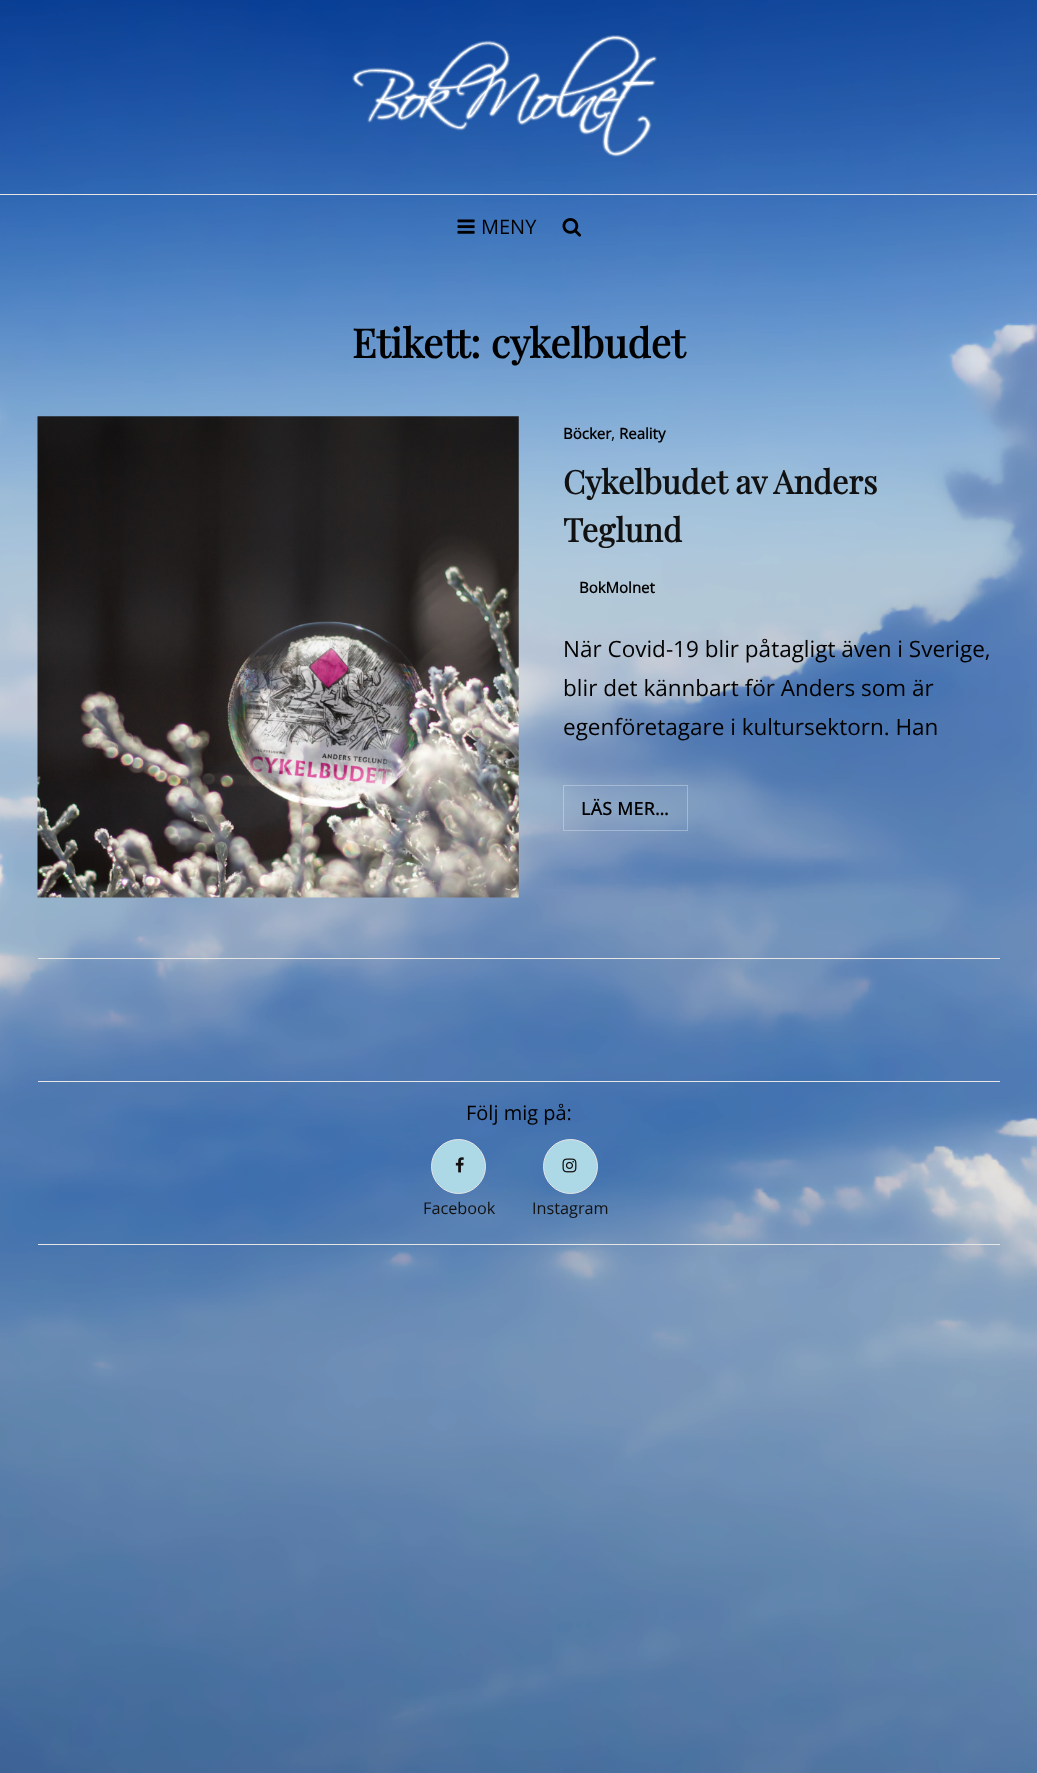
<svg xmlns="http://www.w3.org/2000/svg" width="1037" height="1773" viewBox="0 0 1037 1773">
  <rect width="100%" height="100%" fill="#ffffff"/>
  <image x="0" y="0" width="1037" height="1773" href="img1.png"/>
  <image x="352" y="35" width="305" height="122" href="img2.png"/>
  <rect x="0" y="194" width="1037" height="1" fill="#e6e6e6"/>
  <image x="457" y="219" width="18" height="15" href="img3.png"/>
  <text x="481" y="234" font-family="Open Sans" font-size="20" fill="#000000">MENY</text>
  <image x="562" y="218" width="20" height="19" href="img4.png"/>
  <text x="352" y="358" font-family="Playfair Display" font-size="40" font-weight="bold" fill="#000000">Etikett: cykelbudet</text>
  <rect x="38" y="958" width="962" height="1" fill="#e6e6e6"/>
  <image x="37" y="416" width="482" height="482" href="img5.png"/>
  <text x="563" y="439" font-family="Open Sans" font-size="15" font-weight="bold" fill="#000000">Böcker</text>
  <text x="611" y="439" font-family="Open Sans" font-size="16.25" fill="#000000">,</text>
  <text x="619" y="439" font-family="Open Sans" font-size="15" font-weight="bold" fill="#000000">Reality</text>
  <text x="563" y="494" font-family="Playfair Display" font-size="32.5" font-weight="bold" fill="#111111">Cykelbudet av Anders</text>
  <text x="563" y="542" font-family="Playfair Display" font-size="32.5" font-weight="bold" fill="#111111">Teglund</text>
  <text x="579" y="593" font-family="Open Sans" font-size="15" font-weight="bold" fill="#000000">BokMolnet</text>
  <text x="563" y="657" font-family="Open Sans" font-size="22.5" fill="#000000">När Covid-19 blir påtagligt även i Sverige,</text>
  <text x="563" y="696" font-family="Open Sans" font-size="22.5" fill="#000000">blir det kännbart för Anders som är</text>
  <text x="563" y="735" font-family="Open Sans" font-size="22.5" fill="#000000">egenföretagare i kultursektorn. Han</text>
  <rect x="563.5" y="785.5" width="124" height="45" fill="none" stroke="#ffffff" stroke-opacity="0.3"/>
  <text x="581" y="815" font-family="Open Sans" font-size="17.5" font-weight="bold" letter-spacing="0.5" fill="#000000">LÄS MER…</text>
  <rect x="38" y="1081" width="962" height="1" fill="#e6e6e6"/>
  <rect x="38" y="1244" width="962" height="1" fill="#e6e6e6"/>
  <text x="466" y="1120" font-family="Open Sans" font-size="20" fill="#000000">Följ mig på:</text>
  <circle cx="458.5" cy="1166.5" r="27" fill="#add8e6" stroke="#e6e6e6"/>
  <image x="455" y="1157" width="9" height="16" href="img6.png"/>
  <text x="423" y="1214" font-family="Open Sans" font-size="16.25" fill="#111111">Facebook</text>
  <circle cx="570.5" cy="1166.5" r="27" fill="#add8e6" stroke="#e6e6e6"/>
  <image x="562" y="1158" width="15" height="15" href="img7.png"/>
  <text x="532" y="1214" font-family="Open Sans" font-size="16.25" fill="#111111">Instagram</text>
</svg>
